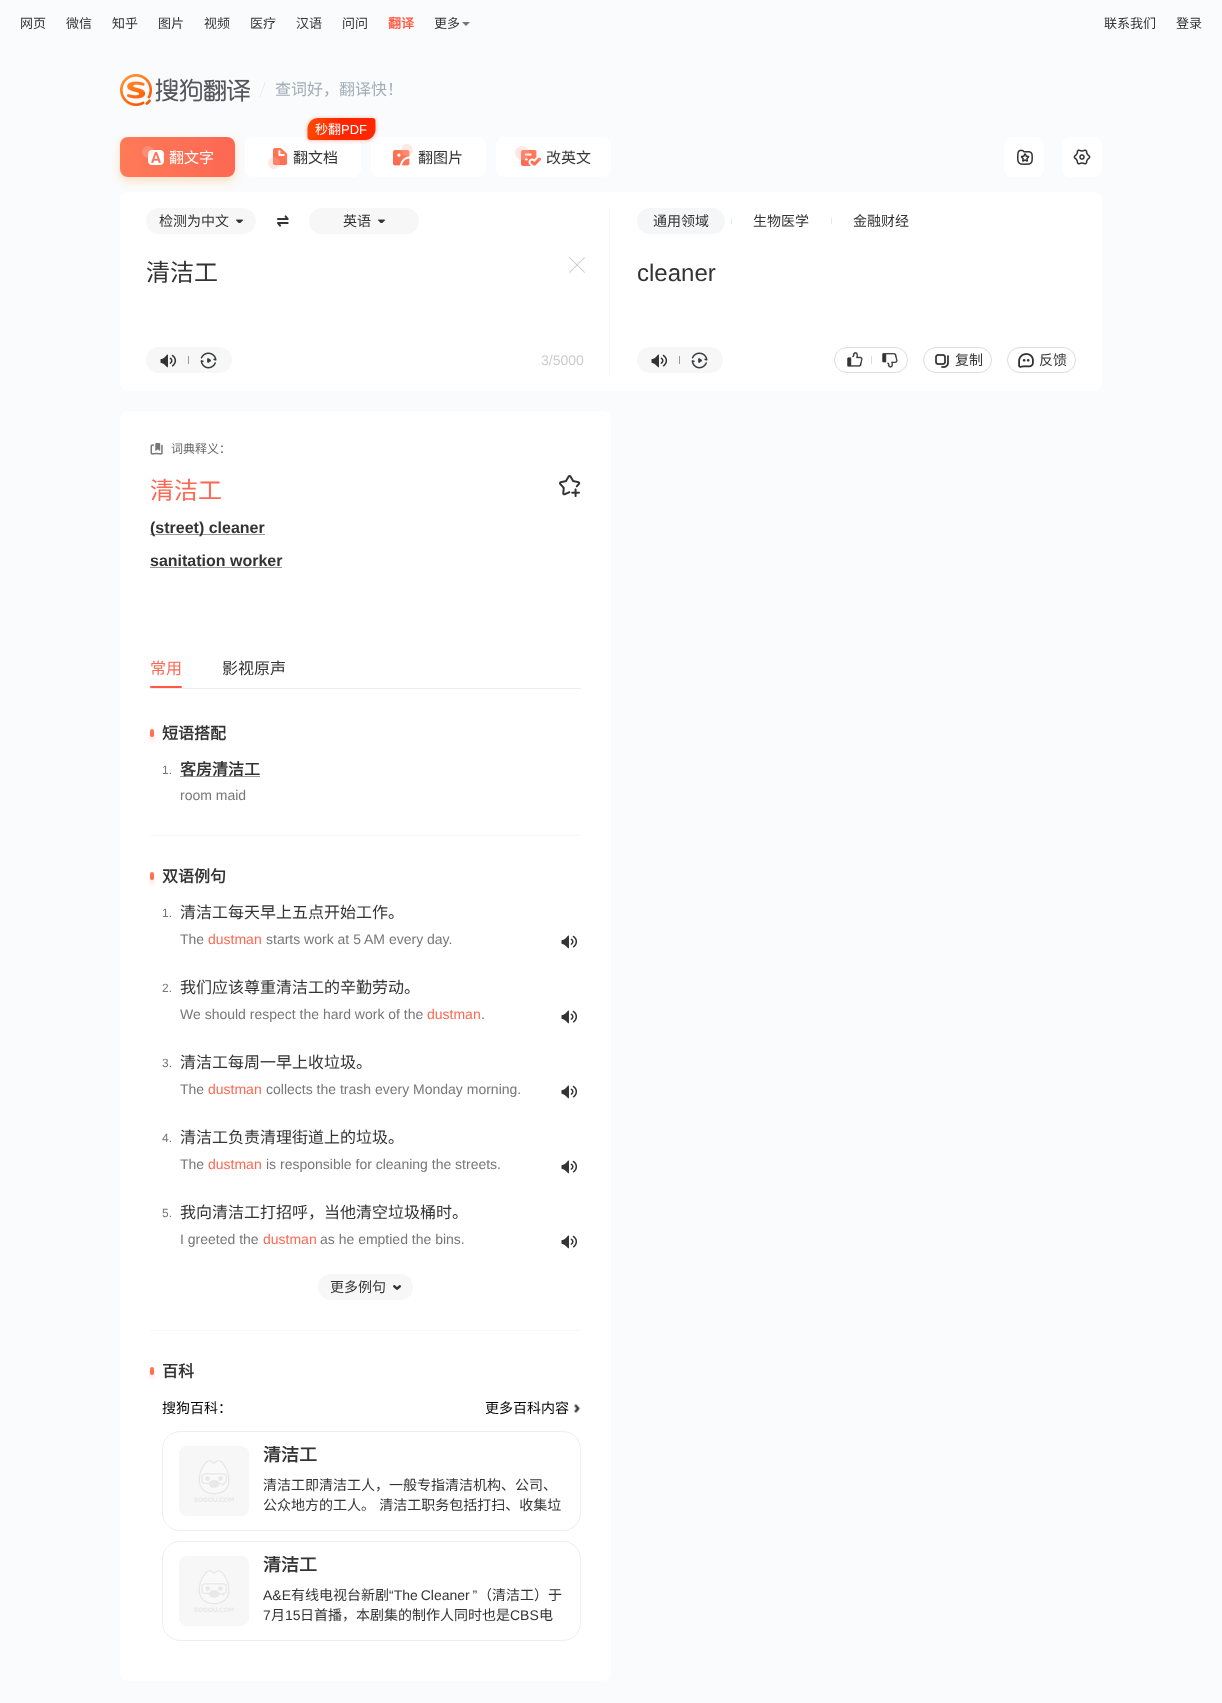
<svg xmlns="http://www.w3.org/2000/svg" width="1222" height="1703" viewBox="0 0 1222 1703">
  <defs>
    <filter id="blur1" x="-50%" y="-200%" width="200%" height="500%"><feGaussianBlur stdDeviation="4"/></filter>
    <linearGradient id="g1" gradientUnits="userSpaceOnUse" x1="120" y1="157" x2="235" y2="157"><stop offset="0" stop-color="#ff7a57"/><stop offset="1" stop-color="#fd6853"/></linearGradient>
    <filter id="blur2" x="-50%" y="-200%" width="200%" height="500%"><feGaussianBlur stdDeviation="2"/></filter>
    <linearGradient id="g2" gradientUnits="userSpaceOnUse" x1="152" y1="729" x2="152" y2="737"><stop offset="0" stop-color="#ff7a57"/><stop offset="1" stop-color="#fd6853"/></linearGradient>
    <linearGradient id="g3" gradientUnits="userSpaceOnUse" x1="152" y1="872" x2="152" y2="880"><stop offset="0" stop-color="#ff7a57"/><stop offset="1" stop-color="#fd6853"/></linearGradient>
    <linearGradient id="g4" gradientUnits="userSpaceOnUse" x1="152" y1="1367" x2="152" y2="1375"><stop offset="0" stop-color="#ff7a57"/><stop offset="1" stop-color="#fd6853"/></linearGradient>
    <clipPath id="clip1"><rect x="263" y="1446" width="301" height="19"/></clipPath>
    <clipPath id="clip2"><rect x="263" y="1556" width="301" height="19"/></clipPath>
  </defs>
  <rect width="100%" height="100%" fill="#fafbfc"/>
  <text x="20" y="28" font-family="Noto Sans CJK SC" font-size="13" fill="#333333">网页</text>
  <text x="66" y="28" font-family="Noto Sans CJK SC" font-size="13" fill="#333333">微信</text>
  <text x="112" y="28" font-family="Noto Sans CJK SC" font-size="13" fill="#333333">知乎</text>
  <text x="158" y="28" font-family="Noto Sans CJK SC" font-size="13" fill="#333333">图片</text>
  <text x="204" y="28" font-family="Noto Sans CJK SC" font-size="13" fill="#333333">视频</text>
  <text x="250" y="28" font-family="Noto Sans CJK SC" font-size="13" fill="#333333">医疗</text>
  <text x="296" y="28" font-family="Noto Sans CJK SC" font-size="13" fill="#333333">汉语</text>
  <text x="342" y="28" font-family="Noto Sans CJK SC" font-size="13" fill="#333333">问问</text>
  <text x="388" y="28" font-family="Noto Sans CJK SC" font-size="13" font-weight="bold" fill="#ff5943">翻译</text>
  <text x="434" y="28" font-family="Noto Sans CJK SC" font-size="13" fill="#333333">更多</text>
  <path d="M462 22H470L466 26Z" fill="#777777"/>
  <text x="1104" y="28" font-family="Noto Sans CJK SC" font-size="13" fill="#333333">联系我们</text>
  <text x="1176" y="28" font-family="Noto Sans CJK SC" font-size="13" fill="#333333">登录</text>
  <image x="120" y="74" width="130" height="32" href="img1.png"/>
  <path d="M265 82.5H265.5L260 97.5H259.5Z" fill="#dcdcdc"/>
  <text x="275" y="95" font-family="Noto Sans CJK SC" font-size="16" fill="#a2adb8">查词好，翻译快！</text>
  <rect x="120" y="192" width="982" height="199" rx="8" fill="#ffffff"/>
  <rect x="120" y="141" width="115" height="40" rx="8" fill="#ff7909" fill-opacity="0.22" filter="url(#blur1)"/>
  <rect x="120" y="137" width="115" height="40" rx="8" fill="url(#g1)"/>
  <image x="142" y="146" width="22" height="19" href="img2.png"/>
  <text x="169" y="163" font-family="Noto Sans CJK SC" font-size="15" fill="#ffffff">翻文字</text>
  <rect x="245" y="137" width="116" height="40" rx="8" fill="#ffffff"/>
  <rect x="371" y="137" width="115" height="40" rx="8" fill="#ffffff"/>
  <image x="304" y="115" width="75" height="29" href="img3.png"/>
  <text x="315" y="134" font-family="Noto Sans CJK SC" font-size="13" fill="#ffffff">秒翻</text>
  <text x="341" y="134" font-family="Liberation Sans" font-size="13" fill="#ffffff">PDF</text>
  <image x="268" y="148" width="20" height="21" href="img4.png"/>
  <text x="293" y="163" font-family="Noto Sans CJK SC" font-size="15" fill="#333333">翻文档</text>
  <image x="393" y="144" width="20" height="22" href="img5.png"/>
  <text x="418" y="163" font-family="Noto Sans CJK SC" font-size="15" fill="#333333">翻图片</text>
  <rect x="496" y="137" width="115" height="40" rx="8" fill="#ffffff"/>
  <image x="515" y="146" width="26" height="20" href="img6.png"/>
  <text x="546" y="163" font-family="Noto Sans CJK SC" font-size="15" fill="#333333">改英文</text>
  <rect x="1004" y="137" width="40" height="40" rx="8" fill="#ffffff"/>
  <image x="1017" y="149" width="16" height="16" href="img7.png"/>
  <rect x="1062" y="137" width="40" height="40" rx="8" fill="#ffffff"/>
  <image x="1073" y="149" width="18" height="16" href="img8.png"/>
  <rect x="609" y="208" width="1" height="167" fill="#f7f7f7"/>
  <rect x="146" y="208" width="110" height="26" rx="13" fill="#f7f7f7"/>
  <text x="159" y="226" font-family="Noto Sans CJK SC" font-size="14" fill="#333333">检测为中文</text>
  <image x="236" y="219" width="7" height="4" href="img9.png"/>
  <image x="277" y="215" width="12" height="12" href="img10.png"/>
  <rect x="309" y="208" width="110" height="26" rx="13" fill="#f7f7f7"/>
  <text x="343" y="226" font-family="Noto Sans CJK SC" font-size="14" fill="#333333">英语</text>
  <image x="378" y="219" width="7" height="4" href="img9.png"/>
  <text x="146" y="281" font-family="Noto Sans CJK SC" font-size="24" fill="#333333">清洁工</text>
  <image x="569" y="257" width="16" height="16" href="img11.png"/>
  <rect x="146" y="347" width="86" height="26" rx="13" fill="#f7f7f7"/>
  <image x="160" y="354" width="17" height="14" href="img12.png"/>
  <rect x="188" y="356" width="1" height="8" fill="#999999"/>
  <image x="200" y="352" width="17" height="17" href="img13.png"/>
  <text x="541" y="365" font-family="Liberation Sans" font-size="14" fill="#cccccc">3/5000</text>
  <rect x="637" y="208" width="88" height="26" rx="13" fill="#f5f6f7"/>
  <text x="653" y="226" font-family="Noto Sans CJK SC" font-size="14" fill="#333333">通用领域</text>
  <rect x="731" y="218" width="1" height="6" fill="#e8e8e8"/>
  <text x="753" y="226" font-family="Noto Sans CJK SC" font-size="14" fill="#333333">生物医学</text>
  <rect x="831" y="218" width="1" height="6" fill="#e8e8e8"/>
  <text x="853" y="226" font-family="Noto Sans CJK SC" font-size="14" fill="#333333">金融财经</text>
  <text x="637" y="281" font-family="Liberation Sans" font-size="24" fill="#333333">cleaner</text>
  <rect x="637" y="347" width="86" height="26" rx="13" fill="#f7f7f7"/>
  <image x="651" y="354" width="17" height="14" href="img12.png"/>
  <rect x="679" y="356" width="1" height="8" fill="#999999"/>
  <image x="691" y="352" width="17" height="17" href="img13.png"/>
  <rect x="834.5" y="347.5" width="73" height="25" rx="12.5" fill="none" stroke="#dddddd"/>
  <image x="847" y="351" width="16" height="16" href="img14.png"/>
  <rect x="871" y="356" width="1" height="8" fill="#dddddd"/>
  <image x="882" y="353" width="16" height="15" href="img15.png"/>
  <rect x="923.5" y="347.5" width="68" height="25" rx="12.5" fill="none" stroke="#dddddd"/>
  <image x="935" y="354" width="14" height="14" href="img16.png"/>
  <text x="955" y="365" font-family="Noto Sans CJK SC" font-size="14" fill="#333333">复制</text>
  <rect x="1007.5" y="347.5" width="68" height="25" rx="12.5" fill="none" stroke="#dddddd"/>
  <image x="1018" y="353" width="16" height="15" href="img17.png"/>
  <text x="1039" y="365" font-family="Noto Sans CJK SC" font-size="14" fill="#333333">反馈</text>
  <rect x="120" y="411" width="491" height="1270" rx="8" fill="#ffffff"/>
  <image x="150" y="443" width="13" height="12" href="img18.png"/>
  <text x="171" y="453" font-family="Noto Sans CJK SC" font-size="12" fill="#666666">词典释义：</text>
  <text x="150" y="499" font-family="Noto Sans CJK SC" font-size="24" fill="#fd6853">清洁工</text>
  <image x="559" y="475" width="22" height="22" href="img19.png"/>
  <rect x="150" y="534" width="115" height="1" fill="#999999"/>
  <text x="150" y="533" font-family="Liberation Sans" font-size="16" font-weight="bold" fill="#333333">(street) cleaner</text>
  <text x="150" y="566" font-family="Liberation Sans" font-size="16" font-weight="bold" fill="#333333">sanitation worker</text>
  <rect x="150" y="567" width="132" height="1" fill="#999999"/>
  <rect x="150" y="688" width="431" height="1" fill="#eeeeee"/>
  <text x="150" y="674" font-family="Noto Sans CJK SC" font-size="16" fill="#fd6853">常用</text>
  <rect x="150" y="686" width="32" height="2" rx="1" fill="#ff5943"/>
  <text x="222" y="674" font-family="Noto Sans CJK SC" font-size="16" fill="#333333">影视原声</text>
  <rect x="150" y="835" width="431" height="1" fill="#f7f7f7"/>
  <rect x="150" y="733" width="4" height="8" rx="2" fill="#ff7b57" fill-opacity="0.27" filter="url(#blur2)"/>
  <rect x="150" y="729" width="4" height="8" rx="2" fill="url(#g2)"/>
  <text x="162" y="739" font-family="Noto Sans CJK SC" font-size="16" font-weight="bold" fill="#333333">短语搭配</text>
  <text x="162" y="774" font-family="Liberation Sans" font-size="12" fill="#777777">1.</text>
  <rect x="180" y="776" width="80" height="1" fill="#999999"/>
  <text x="180" y="775" font-family="Noto Sans CJK SC" font-size="16" font-weight="bold" fill="#333333">客房清洁工</text>
  <text x="180" y="800" font-family="Liberation Sans" font-size="14" fill="#777777">room maid</text>
  <rect x="150" y="1330" width="431" height="1" fill="#f7f7f7"/>
  <rect x="150" y="876" width="4" height="8" rx="2" fill="#ff7b57" fill-opacity="0.27" filter="url(#blur2)"/>
  <rect x="150" y="872" width="4" height="8" rx="2" fill="url(#g3)"/>
  <text x="162" y="882" font-family="Noto Sans CJK SC" font-size="16" font-weight="bold" fill="#333333">双语例句</text>
  <text x="162" y="917" font-family="Liberation Sans" font-size="12" fill="#777777">1.</text>
  <text x="180" y="918" font-family="Noto Sans CJK SC" font-size="16" fill="#333333">清洁工每天早上五点开始工作。</text>
  <text x="180" y="944" font-family="Liberation Sans" font-size="14" fill="#777777">The</text>
  <text x="208" y="944" font-family="Liberation Sans" font-size="14" fill="#fd6853">dustman</text>
  <text x="266" y="944" font-family="Liberation Sans" font-size="14" fill="#777777">starts work at 5 AM every day.</text>
  <image x="561" y="935" width="17" height="14" href="img20.png"/>
  <text x="162" y="992" font-family="Liberation Sans" font-size="12" fill="#777777">2.</text>
  <text x="180" y="993" font-family="Noto Sans CJK SC" font-size="16" fill="#333333">我们应该尊重清洁工的辛勤劳动。</text>
  <text x="180" y="1019" font-family="Liberation Sans" font-size="14" fill="#777777">We should respect the hard work of the</text>
  <text x="427" y="1019" font-family="Liberation Sans" font-size="14" fill="#fd6853">dustman</text>
  <text x="481" y="1019" font-family="Liberation Sans" font-size="14" fill="#777777">.</text>
  <image x="561" y="1010" width="17" height="14" href="img20.png"/>
  <text x="162" y="1067" font-family="Liberation Sans" font-size="12" fill="#777777">3.</text>
  <text x="180" y="1068" font-family="Noto Sans CJK SC" font-size="16" fill="#333333">清洁工每周一早上收垃圾。</text>
  <text x="180" y="1094" font-family="Liberation Sans" font-size="14" fill="#777777">The</text>
  <text x="208" y="1094" font-family="Liberation Sans" font-size="14" fill="#fd6853">dustman</text>
  <text x="266" y="1094" font-family="Liberation Sans" font-size="14" fill="#777777">collects the trash every Monday morning.</text>
  <image x="561" y="1085" width="17" height="14" href="img20.png"/>
  <text x="162" y="1142" font-family="Liberation Sans" font-size="12" fill="#777777">4.</text>
  <text x="180" y="1143" font-family="Noto Sans CJK SC" font-size="16" fill="#333333">清洁工负责清理街道上的垃圾。</text>
  <text x="180" y="1169" font-family="Liberation Sans" font-size="14" fill="#777777">The</text>
  <text x="208" y="1169" font-family="Liberation Sans" font-size="14" fill="#fd6853">dustman</text>
  <text x="266" y="1169" font-family="Liberation Sans" font-size="14" fill="#777777">is responsible for cleaning the streets.</text>
  <image x="561" y="1160" width="17" height="14" href="img20.png"/>
  <text x="162" y="1217" font-family="Liberation Sans" font-size="12" fill="#777777">5.</text>
  <text x="180" y="1218" font-family="Noto Sans CJK SC" font-size="16" fill="#333333">我向清洁工打招呼，当他清空垃圾桶时。</text>
  <text x="180" y="1244" font-family="Liberation Sans" font-size="14" fill="#777777">I greeted the</text>
  <text x="263" y="1244" font-family="Liberation Sans" font-size="14" fill="#fd6853">dustman</text>
  <text x="320" y="1244" font-family="Liberation Sans" font-size="14" fill="#777777">as he emptied the bins.</text>
  <image x="561" y="1235" width="17" height="14" href="img20.png"/>
  <rect x="318" y="1274" width="95" height="26" rx="13" fill="#f7f7f7"/>
  <text x="330" y="1292" font-family="Noto Sans CJK SC" font-size="14" fill="#333333">更多例句</text>
  <image x="393" y="1285" width="9" height="5" href="img21.png"/>
  <rect x="150" y="1371" width="4" height="8" rx="2" fill="#ff7b57" fill-opacity="0.27" filter="url(#blur2)"/>
  <rect x="150" y="1367" width="4" height="8" rx="2" fill="url(#g4)"/>
  <text x="162" y="1377" font-family="Noto Sans CJK SC" font-size="16" font-weight="bold" fill="#333333">百科</text>
  <text x="162" y="1413" font-family="Noto Sans CJK SC" font-size="14" fill="#000000">搜狗百科：</text>
  <text x="485" y="1413" font-family="Noto Sans CJK SC" font-size="14" fill="#000000">更多百科内容</text>
  <image x="574" y="1404" width="6" height="9" href="img22.png"/>
  <rect x="162.5" y="1431.5" width="418" height="99" rx="17.5" fill="none" stroke="#eeeeee"/>
  <rect x="179" y="1446" width="70" height="70" rx="8" fill="#f7f7f7"/>
  <image x="194" y="1460" width="40" height="42" href="img23.png"/>
  <g clip-path="url(#clip1)">
    <text x="263" y="1461" font-family="Noto Sans CJK SC" font-size="18" font-weight="bold" fill="#333333">清洁工</text>
  </g>
  <text x="263" y="1490" font-family="Noto Sans CJK SC" font-size="14" fill="#333333">清洁工即清洁工人，一般专指清洁机构、公司、</text>
  <text x="263" y="1510" word-spacing="1" font-family="Noto Sans CJK SC" font-size="14" fill="#333333">公众地方的工人。 清洁工职务包括打扫、收集垃</text>
  <rect x="162.5" y="1541.5" width="418" height="99" rx="17.5" fill="none" stroke="#eeeeee"/>
  <rect x="179" y="1556" width="70" height="70" rx="8" fill="#f7f7f7"/>
  <image x="194" y="1570" width="40" height="42" href="img23.png"/>
  <g clip-path="url(#clip2)">
    <text x="263" y="1571" font-family="Noto Sans CJK SC" font-size="18" font-weight="bold" fill="#333333">清洁工</text>
  </g>
  <text x="263" y="1600" font-family="Liberation Sans" font-size="14" fill="#333333">A&amp;E</text>
  <text x="291" y="1600" font-family="Noto Sans CJK SC" font-size="14" fill="#333333">有线电视台新剧</text>
  <text x="389" y="1600" word-spacing="-1" font-family="Liberation Sans" font-size="14" fill="#333333">“The Cleaner ”</text>
  <text x="478" y="1600" font-family="Noto Sans CJK SC" font-size="14" fill="#333333">（清洁工）于</text>
  <text x="263" y="1620" font-family="Liberation Sans" font-size="14" fill="#333333">7</text>
  <text x="271" y="1620" font-family="Noto Sans CJK SC" font-size="14" fill="#333333">月</text>
  <text x="285" y="1620" font-family="Liberation Sans" font-size="14" fill="#333333">15</text>
  <text x="300" y="1620" font-family="Noto Sans CJK SC" font-size="14" fill="#333333">日首播，本剧集的制作人同时也是</text>
  <text x="510" y="1620" font-family="Liberation Sans" font-size="14" fill="#333333">CBS</text>
  <text x="539" y="1620" font-family="Noto Sans CJK SC" font-size="14" fill="#333333">电</text>
</svg>
